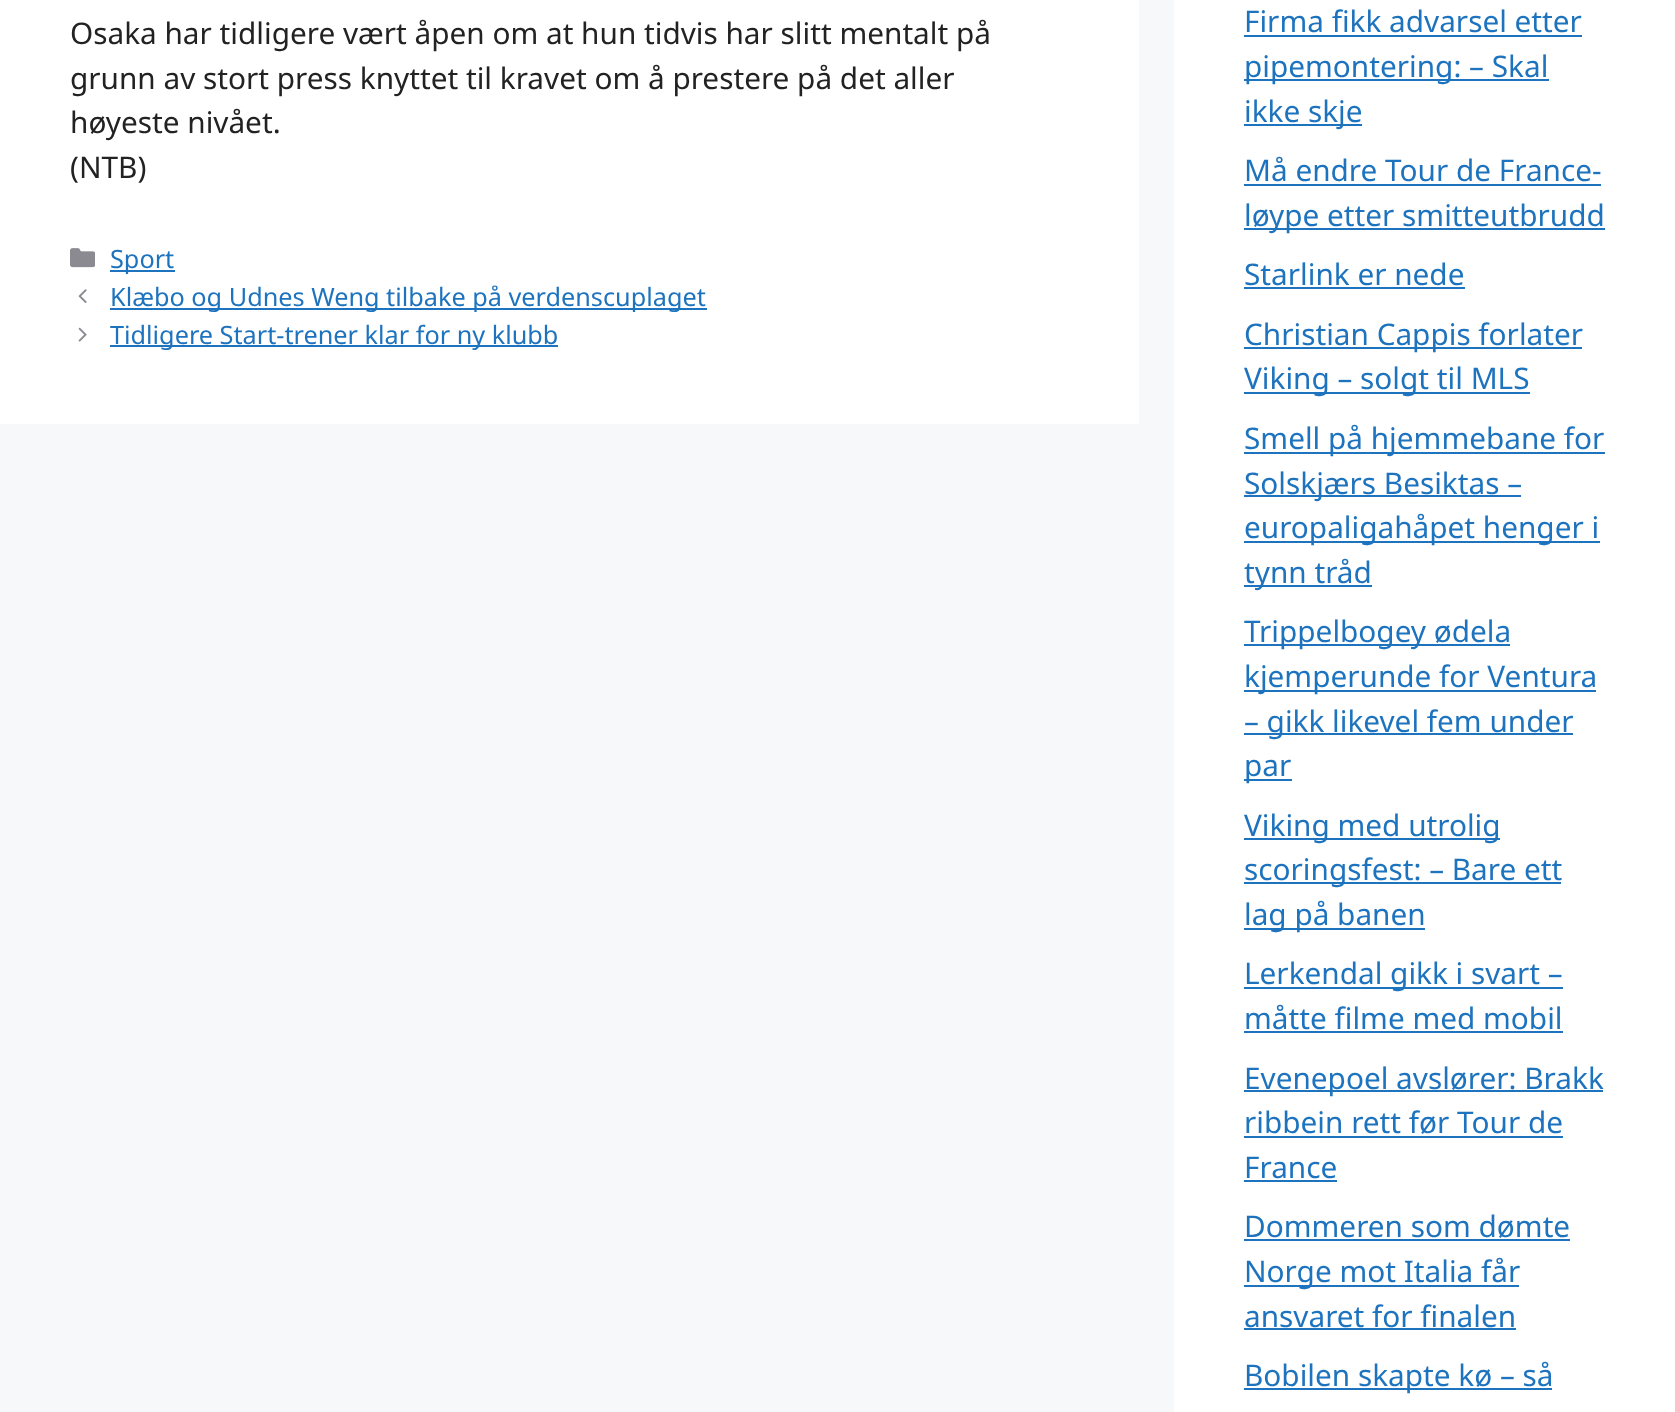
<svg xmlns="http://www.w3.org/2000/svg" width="1675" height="1412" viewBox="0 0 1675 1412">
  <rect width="100%" height="100%" fill="#f7f8f9"/>
  <rect x="0" y="0" width="1139" height="424" fill="#ffffff"/>
  <text x="70" y="44" font-family="Noto Sans" font-size="29.75" fill="#222222">Osaka har tidligere vært åpen om at hun tidvis har slitt mentalt på</text>
  <text x="70" y="89" font-family="Noto Sans" font-size="29.75" fill="#222222">grunn av stort press knyttet til kravet om å prestere på det aller</text>
  <text x="70" y="133" font-family="Noto Sans" font-size="29.75" fill="#222222">høyeste nivået.</text>
  <text x="70" y="178" font-family="Noto Sans" font-size="29.75" fill="#222222">(NTB)</text>
  <image x="70" y="248" width="25" height="20" href="img1.png"/>
  <rect x="110" y="270" width="65" height="2" fill="#1e73be"/>
  <text x="110" y="268" font-family="Noto Sans" font-size="25.25" fill="#1e73be">Sport</text>
  <image x="78" y="289" width="9" height="14" href="img2.png"/>
  <rect x="110" y="308" width="597" height="2" fill="#1e73be"/>
  <text x="110" y="306" font-family="Noto Sans" font-size="25.25" fill="#1e73be">Klæbo og Udnes Weng tilbake på verdenscuplaget</text>
  <image x="78" y="327" width="9" height="15" href="img3.png"/>
  <rect x="110" y="345" width="448" height="2" fill="#1e73be"/>
  <text x="110" y="344" font-family="Noto Sans" font-size="25.25" fill="#1e73be">Tidligere Start-trener klar for ny klubb</text>
  <rect x="1174" y="0" width="501" height="1412" fill="#ffffff"/>
  <text x="1244" y="32" font-family="Noto Sans" font-size="29.75" fill="#1e73be">Firma fikk advarsel etter</text>
  <rect x="1244" y="35" width="338" height="2" fill="#1e73be"/>
  <rect x="1244" y="79" width="305" height="2" fill="#1e73be"/>
  <text x="1244" y="77" font-family="Noto Sans" font-size="29.75" fill="#1e73be">pipemontering: – Skal</text>
  <rect x="1244" y="124" width="118" height="2" fill="#1e73be"/>
  <text x="1244" y="122" font-family="Noto Sans" font-size="29.75" fill="#1e73be">ikke skje</text>
  <text x="1244" y="181" font-family="Noto Sans" font-size="29.75" fill="#1e73be">Må endre Tour de France-</text>
  <rect x="1244" y="184" width="357" height="2" fill="#1e73be"/>
  <rect x="1244" y="228" width="361" height="2" fill="#1e73be"/>
  <text x="1244" y="226" font-family="Noto Sans" font-size="29.75" fill="#1e73be">løype etter smitteutbrudd</text>
  <text x="1244" y="285" font-family="Noto Sans" font-size="29.75" fill="#1e73be">Starlink er nede</text>
  <rect x="1244" y="287" width="221" height="2" fill="#1e73be"/>
  <rect x="1244" y="347" width="338" height="2" fill="#1e73be"/>
  <text x="1244" y="345" font-family="Noto Sans" font-size="29.75" fill="#1e73be">Christian Cappis forlater</text>
  <rect x="1244" y="392" width="286" height="2" fill="#1e73be"/>
  <text x="1244" y="389" font-family="Noto Sans" font-size="29.75" fill="#1e73be">Viking – solgt til MLS</text>
  <rect x="1244" y="452" width="361" height="2" fill="#1e73be"/>
  <text x="1244" y="449" font-family="Noto Sans" font-size="29.75" fill="#1e73be">Smell på hjemmebane for</text>
  <rect x="1244" y="495" width="277" height="2" fill="#1e73be"/>
  <text x="1244" y="494" font-family="Noto Sans" font-size="29.75" fill="#1e73be">Solskjærs Besiktas –</text>
  <rect x="1244" y="541" width="356" height="2" fill="#1e73be"/>
  <text x="1244" y="538" font-family="Noto Sans" font-size="29.75" fill="#1e73be">europaligahåpet henger i</text>
  <rect x="1244" y="585" width="128" height="2" fill="#1e73be"/>
  <text x="1244" y="583" font-family="Noto Sans" font-size="29.75" fill="#1e73be">tynn tråd</text>
  <rect x="1244" y="644" width="266" height="2" fill="#1e73be"/>
  <text x="1244" y="642" font-family="Noto Sans" font-size="29.75" fill="#1e73be">Trippelbogey ødela</text>
  <rect x="1244" y="690" width="352" height="2" fill="#1e73be"/>
  <text x="1244" y="687" font-family="Noto Sans" font-size="29.75" fill="#1e73be">kjemperunde for Ventura</text>
  <rect x="1244" y="733" width="329" height="2" fill="#1e73be"/>
  <text x="1244" y="732" font-family="Noto Sans" font-size="29.75" fill="#1e73be">– gikk likevel fem under</text>
  <rect x="1244" y="779" width="48" height="2" fill="#1e73be"/>
  <text x="1244" y="776" font-family="Noto Sans" font-size="29.75" fill="#1e73be">par</text>
  <rect x="1244" y="838" width="256" height="2" fill="#1e73be"/>
  <text x="1244" y="836" font-family="Noto Sans" font-size="29.75" fill="#1e73be">Viking med utrolig</text>
  <rect x="1244" y="882" width="317" height="2" fill="#1e73be"/>
  <text x="1244" y="880" font-family="Noto Sans" font-size="29.75" fill="#1e73be">scoringsfest: – Bare ett</text>
  <rect x="1244" y="928" width="181" height="2" fill="#1e73be"/>
  <text x="1244" y="925" font-family="Noto Sans" font-size="29.75" fill="#1e73be">lag på banen</text>
  <rect x="1244" y="987" width="319" height="2" fill="#1e73be"/>
  <text x="1244" y="984" font-family="Noto Sans" font-size="29.75" fill="#1e73be">Lerkendal gikk i svart –</text>
  <text x="1244" y="1029" font-family="Noto Sans" font-size="29.75" fill="#1e73be">måtte filme med mobil</text>
  <rect x="1244" y="1031" width="319" height="2" fill="#1e73be"/>
  <rect x="1244" y="1090" width="359" height="2" fill="#1e73be"/>
  <text x="1244" y="1089" font-family="Noto Sans" font-size="29.75" fill="#1e73be">Evenepoel avslører: Brakk</text>
  <text x="1244" y="1133" font-family="Noto Sans" font-size="29.75" fill="#1e73be">ribbein rett før Tour de</text>
  <rect x="1244" y="1136" width="319" height="2" fill="#1e73be"/>
  <text x="1244" y="1178" font-family="Noto Sans" font-size="29.75" fill="#1e73be">France</text>
  <rect x="1244" y="1180" width="93" height="2" fill="#1e73be"/>
  <text x="1244" y="1237" font-family="Noto Sans" font-size="29.75" fill="#1e73be">Dommeren som dømte</text>
  <rect x="1244" y="1239" width="326" height="2" fill="#1e73be"/>
  <rect x="1244" y="1285" width="275" height="2" fill="#1e73be"/>
  <text x="1244" y="1282" font-family="Noto Sans" font-size="29.75" fill="#1e73be">Norge mot Italia får</text>
  <text x="1244" y="1327" font-family="Noto Sans" font-size="29.75" fill="#1e73be">ansvaret for finalen</text>
  <rect x="1244" y="1328" width="272" height="2" fill="#1e73be"/>
  <rect x="1244" y="1388" width="308" height="2" fill="#1e73be"/>
  <text x="1244" y="1386" font-family="Noto Sans" font-size="29.75" fill="#1e73be">Bobilen skapte kø – så</text>
</svg>
